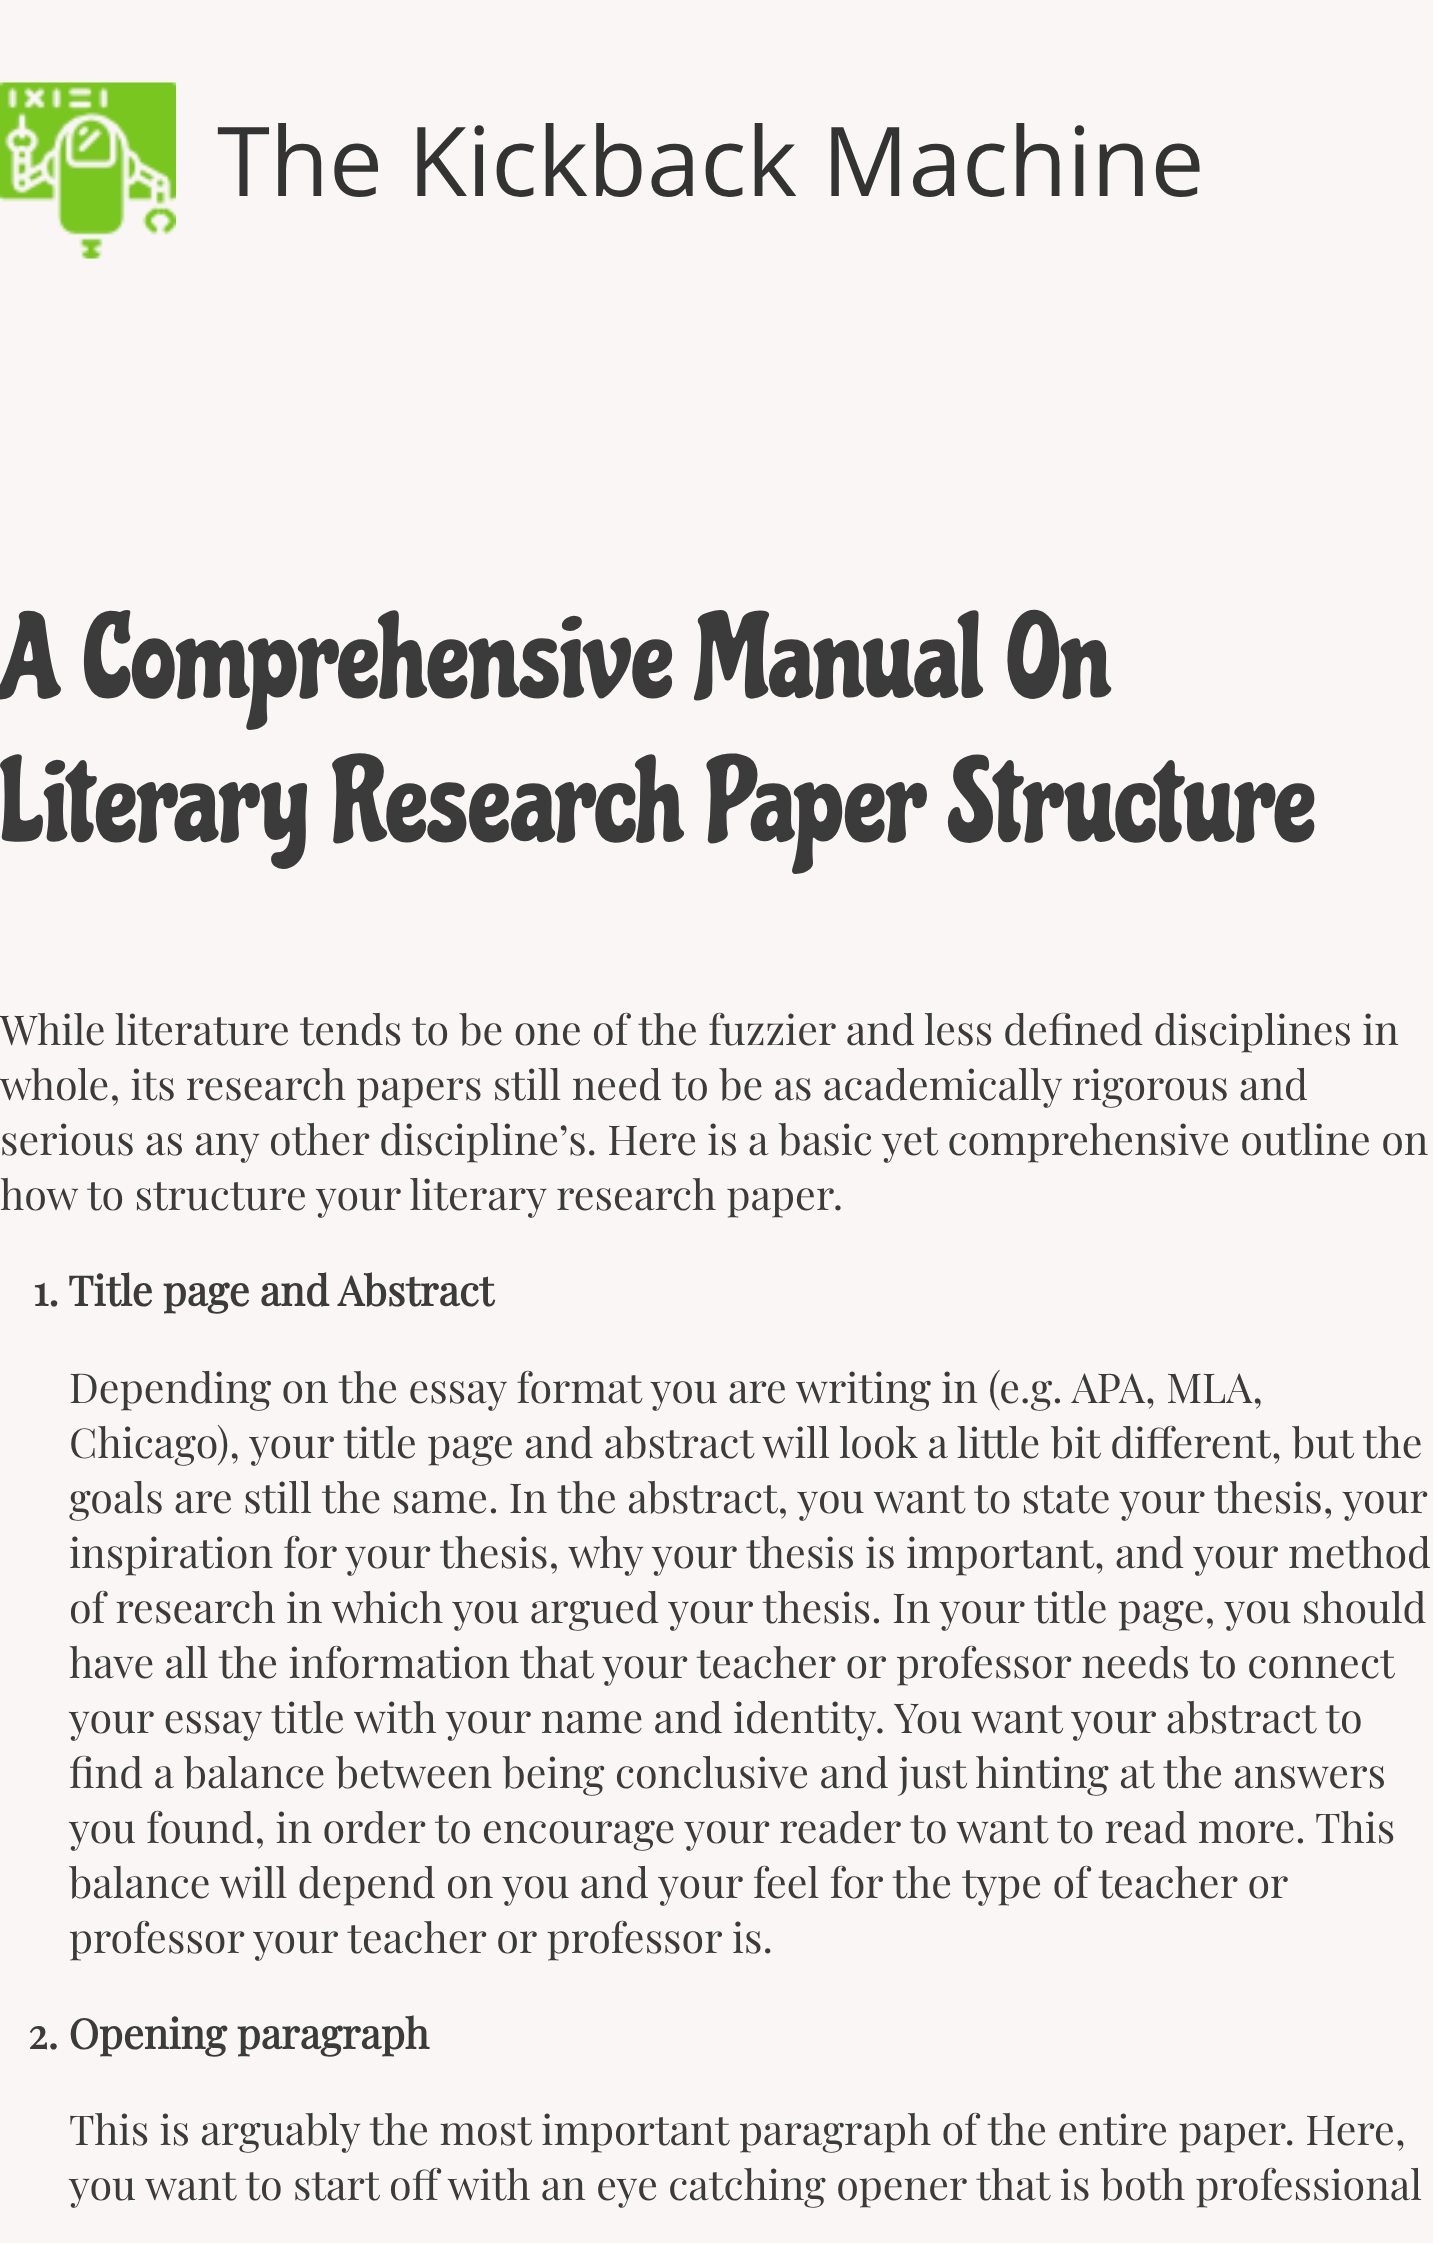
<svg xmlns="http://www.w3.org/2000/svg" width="1433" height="2243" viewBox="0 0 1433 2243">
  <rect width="100%" height="100%" fill="#f9f6f5"/>
  <image x="0" y="82" width="176" height="177" href="img1.png"/>
  <text x="217" y="196" font-family="Open Sans" font-size="96.25" fill="#333333">The Kickback Machine</text>
  <text x="0" y="696" font-family="Chicle" font-size="115.5" fill="#3b3b3b">A Comprehensive Manual On</text>
  <text x="0" y="840" font-family="Chicle" font-size="115.5" fill="#3b3b3b">Literary Research Paper Structure</text>
  <text x="0" y="1045" font-family="Playfair Display" font-size="41.25" fill="#3b3b3b">While literature tends to be one of the fuzzier and less defined disciplines in</text>
  <text x="0" y="1100" font-family="Playfair Display" font-size="41.25" fill="#3b3b3b">whole, its research papers still need to be as academically rigorous and</text>
  <text x="0" y="1155" font-family="Playfair Display" font-size="41.25" fill="#3b3b3b">serious as any other discipline’s. Here is a basic yet comprehensive outline on</text>
  <text x="0" y="1210" font-family="Playfair Display" font-size="41.25" fill="#3b3b3b">how to structure your literary research paper.</text>
  <text x="33" y="1306" font-family="Playfair Display" font-size="41.25" font-weight="bold" fill="#3b3b3b">1. Title page and Abstract</text>
  <text x="69" y="1403" font-family="Playfair Display" font-size="41.25" fill="#3b3b3b">Depending on the essay format you are writing in (e.g. APA, MLA,</text>
  <text x="69" y="1458" font-family="Playfair Display" font-size="41.25" fill="#3b3b3b">Chicago), your title page and abstract will look a little bit different, but the</text>
  <text x="69" y="1513" font-family="Playfair Display" font-size="41.25" fill="#3b3b3b">goals are still the same. In the abstract, you want to state your thesis, your</text>
  <text x="69" y="1568" font-family="Playfair Display" font-size="41.25" fill="#3b3b3b">inspiration for your thesis, why your thesis is important, and your method</text>
  <text x="69" y="1623" font-family="Playfair Display" font-size="41.25" fill="#3b3b3b">of research in which you argued your thesis. In your title page, you should</text>
  <text x="69" y="1678" font-family="Playfair Display" font-size="41.25" fill="#3b3b3b">have all the information that your teacher or professor needs to connect</text>
  <text x="69" y="1733" font-family="Playfair Display" font-size="41.25" fill="#3b3b3b">your essay title with your name and identity. You want your abstract to</text>
  <text x="69" y="1788" font-family="Playfair Display" font-size="41.25" fill="#3b3b3b">find a balance between being conclusive and just hinting at the answers</text>
  <text x="69" y="1843" font-family="Playfair Display" font-size="41.25" fill="#3b3b3b">you found, in order to encourage your reader to want to read more. This</text>
  <text x="69" y="1898" font-family="Playfair Display" font-size="41.25" fill="#3b3b3b">balance will depend on you and your feel for the type of teacher or</text>
  <text x="69" y="1953" font-family="Playfair Display" font-size="41.25" fill="#3b3b3b">professor your teacher or professor is.</text>
  <text x="28" y="2049" font-family="Playfair Display" font-size="41.25" font-weight="bold" fill="#3b3b3b">2. Opening paragraph</text>
  <text x="69" y="2145" font-family="Playfair Display" font-size="41.25" fill="#3b3b3b">This is arguably the most important paragraph of the entire paper. Here,</text>
  <text x="69" y="2200" font-family="Playfair Display" font-size="41.25" fill="#3b3b3b">you want to start off with an eye catching opener that is both professional</text>
</svg>
